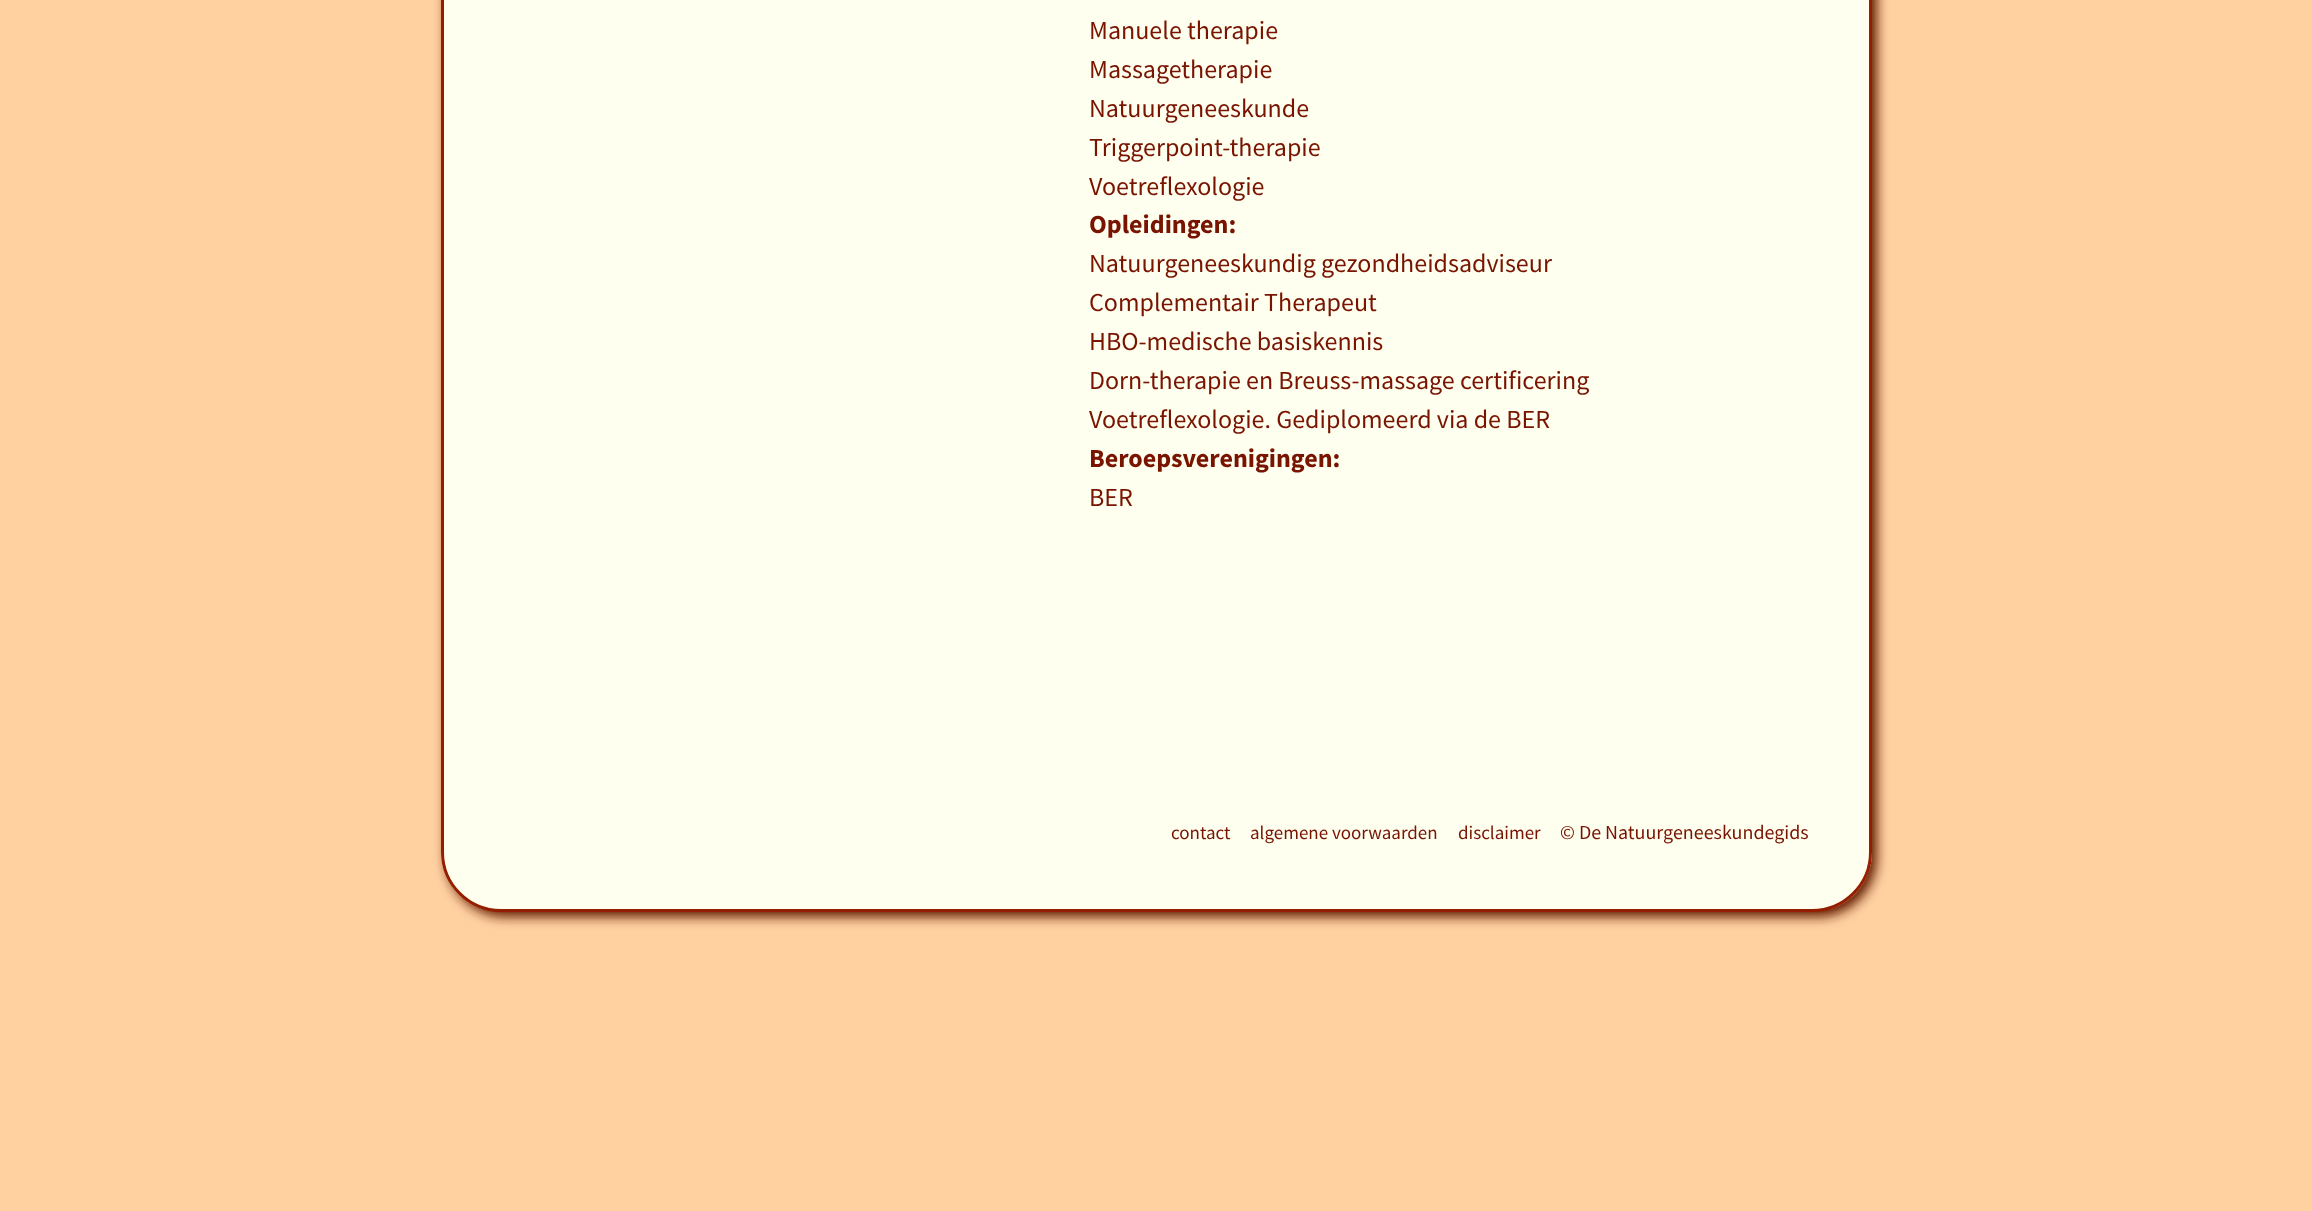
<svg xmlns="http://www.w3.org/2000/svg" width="2312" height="1211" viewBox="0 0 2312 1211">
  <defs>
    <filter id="blur1" x="-50%" y="-200%" width="200%" height="500%"><feGaussianBlur stdDeviation="6"/></filter>
    <clipPath id="clip1"><rect x="441" y="-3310" width="1431" height="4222" rx="60"/></clipPath>
    <linearGradient id="g1" gradientUnits="userSpaceOnUse" x1="1156" y1="-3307" x2="1157" y2="909"><stop offset="0" stop-color="#fffff5"/><stop offset="0.7" stop-color="#fffff0"/></linearGradient>
  </defs>
  <rect width="100%" height="100%" fill="#ffd1a1"/>
  <rect x="446" y="-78" width="1431" height="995" rx="60" fill="#641e00" filter="url(#blur1)"/>
  <g clip-path="url(#clip1)">
    <rect x="441" y="0" width="1431" height="909" fill="url(#g1)"/>
  </g>
  <rect x="442.5" y="-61.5" width="1428" height="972" rx="58.5" fill="none" stroke="#961e00" stroke-width="3"/>
  <text x="1089" y="39" font-family="Source Sans Pro" font-size="26" fill="#781400">Manuele therapie</text>
  <text x="1089" y="78" font-family="Source Sans Pro" font-size="26" fill="#781400">Massagetherapie</text>
  <text x="1089" y="117" font-family="Source Sans Pro" font-size="26" fill="#781400">Natuurgeneeskunde</text>
  <text x="1089" y="156" font-family="Source Sans Pro" font-size="26" fill="#781400">Triggerpoint-therapie</text>
  <text x="1089" y="195" font-family="Source Sans Pro" font-size="26" fill="#781400">Voetreflexologie</text>
  <text x="1089" y="233" font-family="Source Sans Pro" font-size="26" font-weight="bold" fill="#781400">Opleidingen:</text>
  <text x="1089" y="272" font-family="Source Sans Pro" font-size="26" fill="#781400">Natuurgeneeskundig gezondheidsadviseur</text>
  <text x="1089" y="311" font-family="Source Sans Pro" font-size="26" fill="#781400">Complementair Therapeut</text>
  <text x="1089" y="350" font-family="Source Sans Pro" font-size="26" fill="#781400">HBO-medische basiskennis</text>
  <text x="1089" y="389" font-family="Source Sans Pro" font-size="26" fill="#781400">Dorn-therapie en Breuss-massage certificering</text>
  <text x="1089" y="428" font-family="Source Sans Pro" font-size="26" fill="#781400">Voetreflexologie. Gediplomeerd via de BER</text>
  <text x="1089" y="467" font-family="Source Sans Pro" font-size="26" font-weight="bold" fill="#781400">Beroepsverenigingen:</text>
  <text x="1089" y="506" font-family="Source Sans Pro" font-size="26" fill="#781400">BER</text>
  <text x="1171" y="839" font-family="Source Sans Pro" font-size="19" fill="#781400">contact</text>
  <text x="1250" y="839" font-family="Source Sans Pro" font-size="19" fill="#781400">algemene voorwaarden</text>
  <text x="1458" y="839" font-family="Source Sans Pro" font-size="19" fill="#781400">disclaimer</text>
  <text x="1560" y="839" font-family="Source Sans Pro" font-size="20" fill="#781400">© De Natuurgeneeskundegids</text>
</svg>
